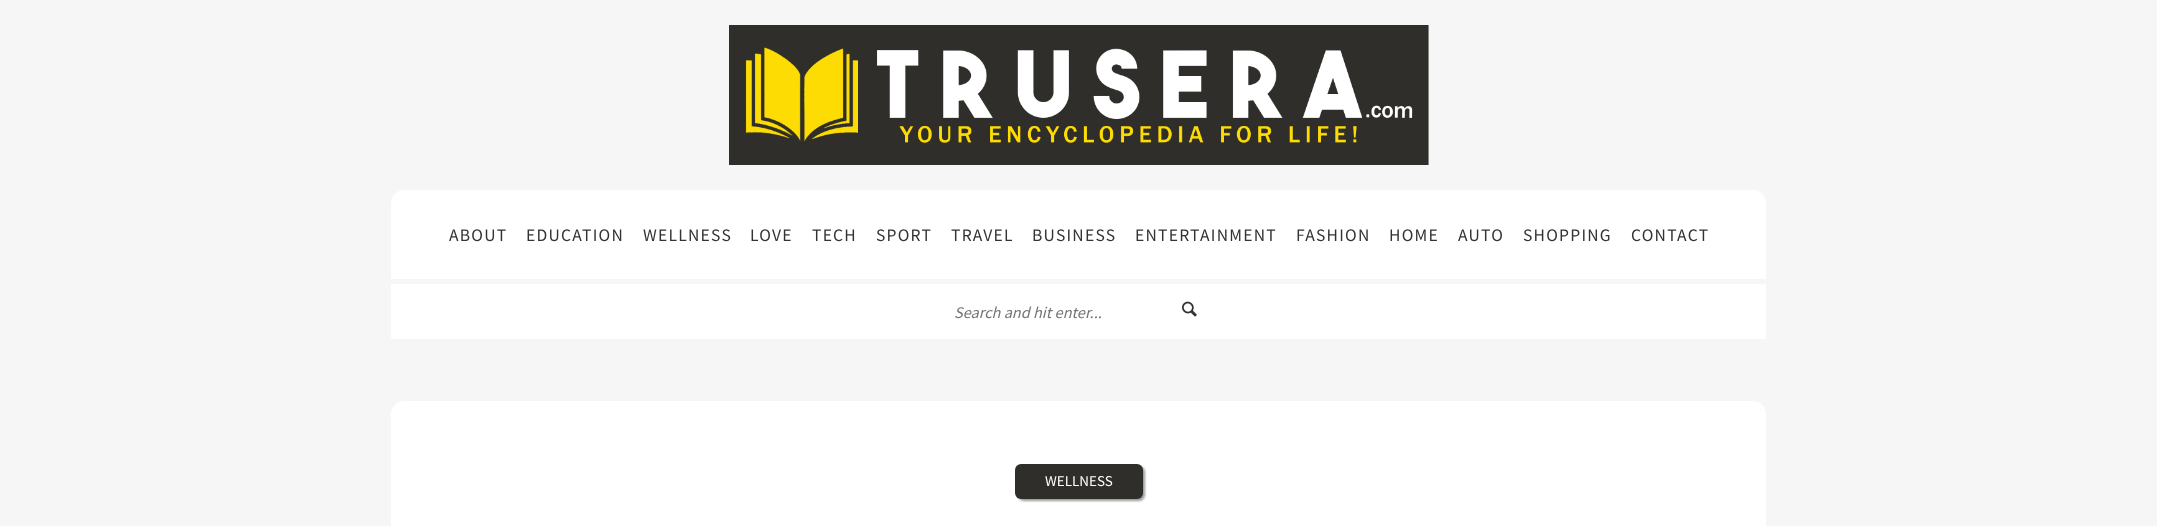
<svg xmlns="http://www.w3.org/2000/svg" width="2157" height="526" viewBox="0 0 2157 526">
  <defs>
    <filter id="blur1" x="-50%" y="-200%" width="200%" height="500%"><feGaussianBlur stdDeviation="1"/></filter>
  </defs>
  <rect width="100%" height="100%" fill="#f6f6f6"/>
  <image x="729" y="25" width="700" height="140" href="img1.png"/>
  <path d="M404 190H1753C1760 190 1766 196 1766 203V279H391V203C391 196 397 190 404 190Z" fill="#ffffff"/>
  <text x="449" y="241" font-family="Source Sans Pro" font-size="17.5" letter-spacing="1.25" fill="#333333">ABOUT</text>
  <text x="526" y="241" font-family="Source Sans Pro" font-size="17.5" letter-spacing="1.25" fill="#333333">EDUCATION</text>
  <text x="643" y="241" font-family="Source Sans Pro" font-size="17.5" letter-spacing="1.25" fill="#333333">WELLNESS</text>
  <text x="750" y="241" font-family="Source Sans Pro" font-size="17.5" letter-spacing="1.25" fill="#333333">LOVE</text>
  <text x="812" y="241" font-family="Source Sans Pro" font-size="17.5" letter-spacing="1.25" fill="#333333">TECH</text>
  <text x="876" y="241" font-family="Source Sans Pro" font-size="17.5" letter-spacing="1.25" fill="#333333">SPORT</text>
  <text x="951" y="241" font-family="Source Sans Pro" font-size="17.5" letter-spacing="1.25" fill="#333333">TRAVEL</text>
  <text x="1032" y="241" font-family="Source Sans Pro" font-size="17.5" letter-spacing="1.25" fill="#333333">BUSINESS</text>
  <text x="1135" y="241" font-family="Source Sans Pro" font-size="17.5" letter-spacing="1.25" fill="#333333">ENTERTAINMENT</text>
  <text x="1296" y="241" font-family="Source Sans Pro" font-size="17.5" letter-spacing="1.25" fill="#333333">FASHION</text>
  <text x="1389" y="241" font-family="Source Sans Pro" font-size="17.5" letter-spacing="1.25" fill="#333333">HOME</text>
  <text x="1458" y="241" font-family="Source Sans Pro" font-size="17.5" letter-spacing="1.25" fill="#333333">AUTO</text>
  <text x="1523" y="241" font-family="Source Sans Pro" font-size="17.5" letter-spacing="1.25" fill="#333333">SHOPPING</text>
  <text x="1631" y="241" font-family="Source Sans Pro" font-size="17.5" letter-spacing="1.25" fill="#333333">CONTACT</text>
  <rect x="391" y="284" width="1375" height="55" fill="#ffffff"/>
  <text x="954" y="318" font-family="Source Sans Pro" font-size="16.25" font-style="italic" fill="#757575">Search and hit enter...</text>
  <image x="1182" y="301" width="15" height="16" href="img2.png"/>
  <path d="M404 401H1753C1760 401 1766 407 1766 414V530H391V414C391 407 397 401 404 401Z" fill="#ffffff"/>
  <rect x="1018" y="466" width="127" height="35" rx="6" fill="#000000" fill-opacity="0.4" filter="url(#blur1)"/>
  <rect x="1015" y="464" width="128" height="35" rx="6" fill="#2f2e2a"/>
  <text x="1045" y="486" font-family="Source Sans Pro" font-size="15" fill="#ffffff">WELLNESS</text>
</svg>
